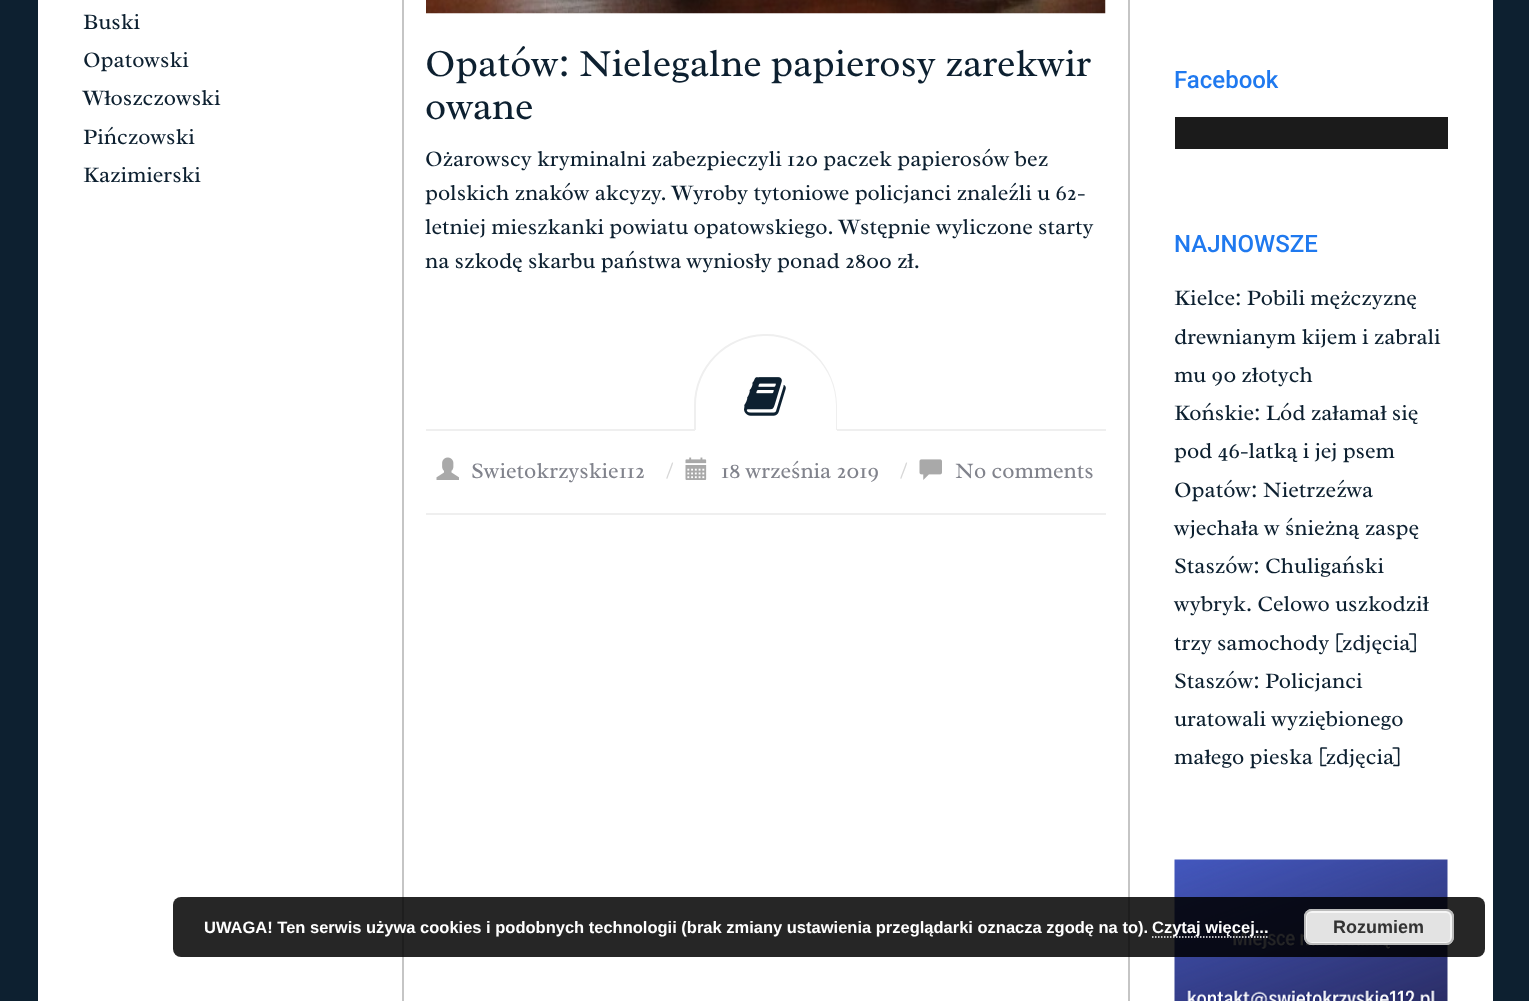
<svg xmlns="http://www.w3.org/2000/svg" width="1529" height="1001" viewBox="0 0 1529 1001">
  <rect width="100%" height="100%" fill="#0d2030"/>
  <rect x="38" y="0" width="364" height="1001" fill="#ffffff"/>
  <text x="83" y="29" font-family="Radley" font-size="22.5" fill="#0d2030">Buski</text>
  <text x="83" y="67" font-family="Radley" font-size="22.5" fill="#0d2030">Opatowski</text>
  <text x="83" y="105" font-family="Radley" font-size="22.5" fill="#0d2030">Włoszczowski</text>
  <text x="83" y="144" font-family="Radley" font-size="22.5" fill="#0d2030">Pińczowski</text>
  <text x="83" y="182" font-family="Radley" font-size="22.5" fill="#0d2030">Kazimierski</text>
  <rect x="404" y="0" width="724" height="1001" fill="#ffffff"/>
  <path d="M417-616H1114C1123-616 1130-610 1130-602V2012H402V-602C402-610 409-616 417-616ZM417-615H1114C1122-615 1128-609 1128-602V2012H404V-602C404-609 410-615 417-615Z" fill="#c5c5c5" fill-rule="evenodd"/>
  <image x="426" y="0" width="680" height="14" href="img1.png"/>
  <text x="425" y="76" font-family="Radley" font-size="39" fill="#0d2030">Opatów: Nielegalne papierosy zarekwir</text>
  <text x="425" y="119" font-family="Radley" font-size="39" fill="#0d2030">owane</text>
  <text x="425" y="166" font-family="Radley" font-size="22.5" fill="#0d2030">Ożarowscy kryminalni zabezpieczyli 120 paczek papierosów bez</text>
  <text x="425" y="200" font-family="Radley" font-size="22.5" fill="#0d2030">polskich znaków akcyzy. Wyroby tytoniowe policjanci znaleźli u 62-</text>
  <text x="425" y="234" font-family="Radley" font-size="22.5" fill="#0d2030">letniej mieszkanki powiatu opatowskiego. Wstępnie wyliczone starty</text>
  <text x="425" y="268" font-family="Radley" font-size="22.5" fill="#0d2030">na szkodę skarbu państwa wyniosły ponad 2800 zł.</text>
  <rect x="426" y="429" width="680" height="2" fill="#efefef"/>
  <rect x="426" y="513" width="680" height="2" fill="#efefef"/>
  <path d="M766 335C805 335 837 367 837 406V431H695V406C695 367 727 335 766 335Z" fill="#ffffff"/>
  <path d="M766 334C805 334 837 366 837 406V430H694V406C694 366 726 334 766 334ZM766 336C804 336 836 367 836 406V430H696V406C696 367 727 336 766 336Z" fill="#efefef" fill-rule="evenodd"/>
  <image x="744" y="377" width="42" height="39" href="img2.png"/>
  <image x="436" y="457" width="23" height="23" href="img3.png"/>
  <text x="471" y="478" font-family="Radley" font-size="22.5" fill="#81838c">Swietokrzyskie112</text>
  <text x="666" y="478" font-family="Radley" font-size="22.5" fill="#d7d7d7">/</text>
  <image x="685" y="457" width="22" height="23" href="img4.png"/>
  <text x="721" y="478" font-family="Radley" font-size="22.5" fill="#81838c">18 września 2019</text>
  <text x="900" y="478" font-family="Radley" font-size="22.5" fill="#d7d7d7">/</text>
  <image x="919" y="459" width="23" height="21" href="img5.png"/>
  <text x="955" y="478" font-family="Radley" font-size="22.5" fill="#81838c">No comments</text>
  <rect x="1130" y="0" width="363" height="1001" fill="#ffffff"/>
  <text x="1174" y="88" font-family="Roboto" font-size="24" font-weight="500" fill="#1f79ef">Facebook</text>
  <rect x="1175" y="117" width="273" height="32" fill="#1b1b1b"/>
  <text x="1174" y="252" font-family="Roboto" font-size="24" font-weight="500" fill="#1f79ef">NAJNOWSZE</text>
  <text x="1174" y="305" font-family="Radley" font-size="22.5" fill="#0d2030">Kielce: Pobili mężczyznę</text>
  <text x="1174" y="344" font-family="Radley" font-size="22.5" fill="#0d2030">drewnianym kijem i zabrali</text>
  <text x="1174" y="382" font-family="Radley" font-size="22.5" fill="#0d2030">mu 90 złotych</text>
  <text x="1174" y="420" font-family="Radley" font-size="22.5" fill="#0d2030">Końskie: Lód załamał się</text>
  <text x="1174" y="458" font-family="Radley" font-size="22.5" fill="#0d2030">pod 46-latką i jej psem</text>
  <text x="1174" y="497" font-family="Radley" font-size="22.5" fill="#0d2030">Opatów: Nietrzeźwa</text>
  <text x="1174" y="535" font-family="Radley" font-size="22.5" fill="#0d2030">wjechała w śnieżną zaspę</text>
  <text x="1174" y="573" font-family="Radley" font-size="22.5" fill="#0d2030">Staszów: Chuligański</text>
  <text x="1174" y="611" font-family="Radley" font-size="22.5" fill="#0d2030">wybryk. Celowo uszkodził</text>
  <text x="1174" y="650" font-family="Radley" font-size="22.5" fill="#0d2030">trzy samochody [zdjęcia]</text>
  <text x="1174" y="688" font-family="Radley" font-size="22.5" fill="#0d2030">Staszów: Policjanci</text>
  <text x="1174" y="726" font-family="Radley" font-size="22.5" fill="#0d2030">uratowali wyziębionego</text>
  <text x="1174" y="764" font-family="Radley" font-size="22.5" fill="#0d2030">małego pieska [zdjęcia]</text>
  <image x="1174" y="859" width="274" height="142" href="img6.png"/>
  <rect x="173" y="897" width="1312" height="60" rx="8" fill="#000000" fill-opacity="0.85"/>
  <text x="204" y="933" font-family="Liberation Sans" font-size="16.5" font-weight="bold" fill="#ffffff">UWAGA! Ten serwis używa cookies i podobnych technologii (brak zmiany ustawienia przeglądarki oznacza zgodę na to).</text>
  <path d="M1152 937H1269" fill="none" stroke="#ffffff" stroke-width="1.5" stroke-dasharray="1.5 1.5"/>
  <text x="1152" y="933" font-family="Liberation Sans" font-size="16.5" font-weight="bold" fill="#ffffff">Czytaj więcej...</text>
  <rect x="1304" y="909" width="150" height="36" rx="8" fill="#e3e3e3"/>
  <rect x="1306" y="912" width="145" height="31" rx="5" fill="none" stroke="#f6f6f6" stroke-width="2"/>
  <rect x="1305" y="910" width="148" height="34" rx="7" fill="none" stroke="#bbbbbb" stroke-width="2"/>
  <text x="1333" y="933" font-family="Liberation Sans" font-size="18" font-weight="bold" fill="#333333">Rozumiem</text>
</svg>
